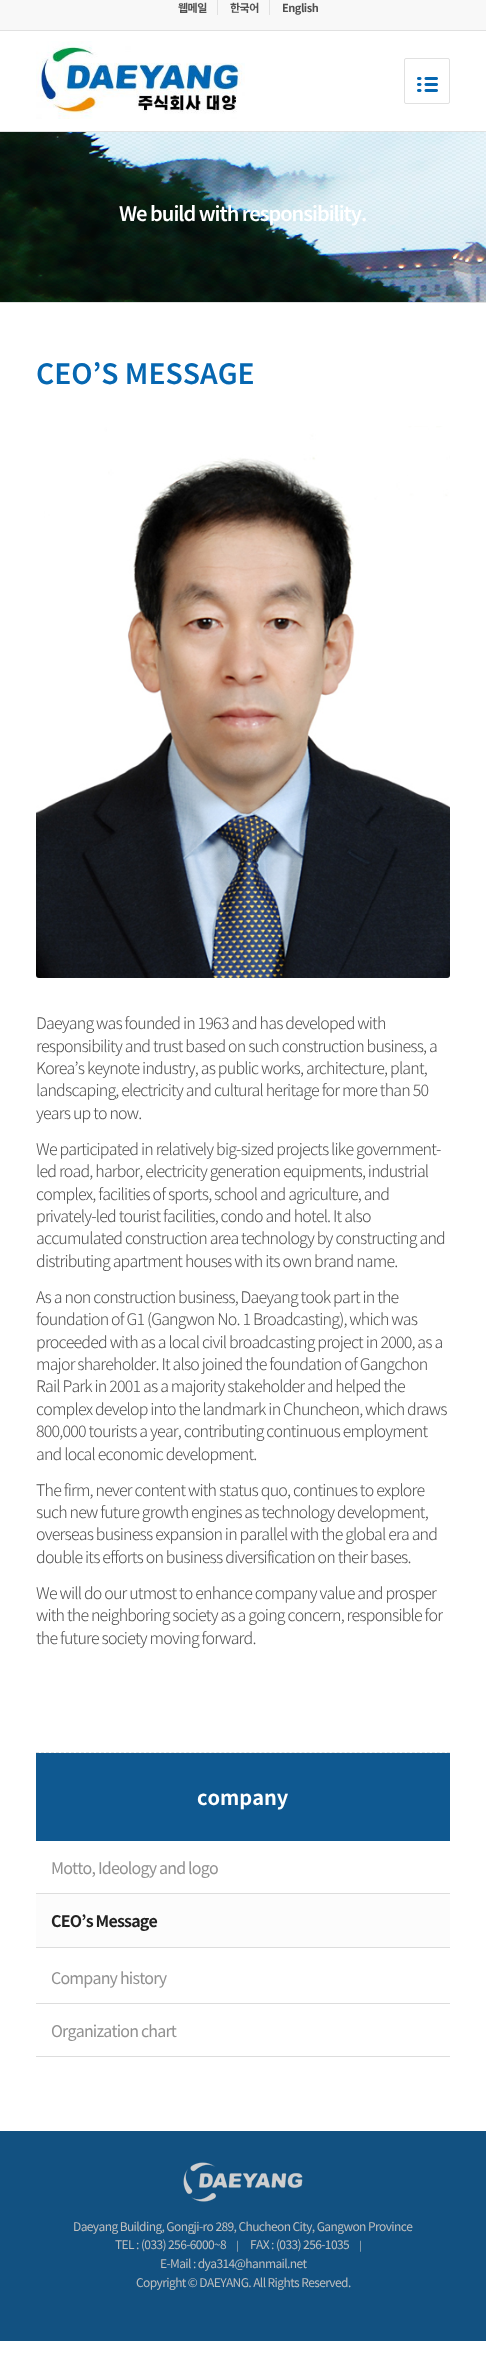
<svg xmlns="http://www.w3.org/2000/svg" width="486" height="2364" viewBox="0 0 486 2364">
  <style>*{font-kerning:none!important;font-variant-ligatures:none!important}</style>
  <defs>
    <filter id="blur1" x="-50%" y="-200%" width="200%" height="500%"><feGaussianBlur stdDeviation="0.5"/></filter>
  </defs>
  <rect width="100%" height="100%" fill="#ffffff"/>
  <rect x="0" y="0" width="486" height="30" fill="#f8f8f8"/>
  <rect x="0" y="30" width="486" height="1" fill="#e1e1e1"/>
  <rect x="217" y="0" width="1" height="15" fill="#e1e1e1"/>
  <text x="178" y="12" font-family="Noto Sans KR" font-size="11" font-weight="bold" letter-spacing="-0.5" fill="#505050">웹메일</text>
  <rect x="269" y="0" width="1" height="15" fill="#e1e1e1"/>
  <text x="230" y="12" font-family="Noto Sans KR" font-size="11" font-weight="bold" letter-spacing="-0.5" fill="#505050">한국어</text>
  <text x="282" y="12" font-family="Noto Sans KR" font-size="11" font-weight="bold" letter-spacing="-0.5" fill="#505050">English</text>
  <rect x="0" y="131" width="486" height="1" fill="#e1e1e1"/>
  <image x="36" y="41" width="209" height="78" href="img1.png"/>
  <rect x="404.5" y="58.5" width="45" height="45" rx="1.5" fill="none" stroke="#e1e1e1"/>
  <image x="417" y="77" width="21" height="15" href="img2.png"/>
  <image x="0" y="132" width="486" height="170" href="img3.png"/>
  <text x="119" y="221" font-family="Noto Sans KR" font-size="20" font-weight="600" letter-spacing="-1" fill="#ffffff">We build with responsibility.</text>
  <rect x="0" y="302" width="486" height="1" fill="#e1e1e1"/>
  <text x="36" y="384" font-family="Noto Sans KR" font-size="28" font-weight="600" fill="#0667b1">CEO’S MESSAGE</text>
  <image x="36" y="426" width="414" height="552" href="img4.png"/>
  <text x="36" y="1029" font-family="Noto Sans KR" font-size="16" font-weight="300" letter-spacing="-0.8" fill="#505050">Daeyang was founded in 1963 and has developed with</text>
  <text x="36" y="1052" font-family="Noto Sans KR" font-size="16" font-weight="300" letter-spacing="-0.8" fill="#505050">responsibility and trust based on such construction business, a</text>
  <text x="36" y="1074" font-family="Noto Sans KR" font-size="16" font-weight="300" letter-spacing="-0.8" fill="#505050">Korea’s keynote industry, as public works, architecture,</text>
  <text x="390" y="1074" font-family="Noto Sans KR" font-size="16" font-weight="300" letter-spacing="-0.8" fill="#505050">plant,</text>
  <text x="36" y="1096" font-family="Noto Sans KR" font-size="16" font-weight="300" letter-spacing="-0.8" fill="#505050">landscaping, electricity and cultural heritage for more than 50</text>
  <text x="36" y="1119" font-family="Noto Sans KR" font-size="16" font-weight="300" letter-spacing="-0.8" fill="#505050">years up to now.</text>
  <text x="36" y="1155" font-family="Noto Sans KR" font-size="16" font-weight="300" letter-spacing="-0.8" fill="#505050">We participated in relatively big-sized projects like government-</text>
  <text x="36" y="1177" font-family="Noto Sans KR" font-size="16" font-weight="300" letter-spacing="-0.8" fill="#505050">led road, harbor, electricity generation equipments, industrial</text>
  <text x="36" y="1200" font-family="Noto Sans KR" font-size="16" font-weight="300" letter-spacing="-0.8" fill="#505050">complex, facilities of sports, school and agriculture, and</text>
  <text x="36" y="1222" font-family="Noto Sans KR" font-size="16" font-weight="300" letter-spacing="-0.8" fill="#505050">privately-led tourist facilities, condo and hotel. It also</text>
  <text x="36" y="1244" font-family="Noto Sans KR" font-size="16" font-weight="300" letter-spacing="-0.8" fill="#505050">accumulated construction area technology by constructing and</text>
  <text x="36" y="1267" font-family="Noto Sans KR" font-size="16" font-weight="300" letter-spacing="-0.8" fill="#505050">distributing apartment houses with its own brand name.</text>
  <text x="36" y="1303" font-family="Noto Sans KR" font-size="16" font-weight="300" letter-spacing="-0.8" fill="#505050">As a non construction business, Daeyang took part in the</text>
  <text x="36" y="1325" font-family="Noto Sans KR" font-size="16" font-weight="300" letter-spacing="-0.8" fill="#505050">foundation of G1 (Gangwon No. 1 Broadcasting), which was</text>
  <text x="36" y="1348" font-family="Noto Sans KR" font-size="16" font-weight="300" letter-spacing="-0.8" fill="#505050">proceeded with as a local civil broadcasting project in 2000, as a</text>
  <text x="36" y="1370" font-family="Noto Sans KR" font-size="16" font-weight="300" letter-spacing="-0.8" fill="#505050">major shareholder. It also joined the foundation of Gangchon</text>
  <text x="36" y="1392" font-family="Noto Sans KR" font-size="16" font-weight="300" letter-spacing="-0.8" fill="#505050">Rail Park in 2001 as a majority stakeholder and helped the</text>
  <text x="36" y="1415" font-family="Noto Sans KR" font-size="16" font-weight="300" letter-spacing="-0.8" fill="#505050">complex develop into the landmark in Chuncheon, which draws</text>
  <text x="36" y="1437" font-family="Noto Sans KR" font-size="16" font-weight="300" letter-spacing="-0.8" fill="#505050">800,000 tourists a year, contributing continuous employment</text>
  <text x="36" y="1460" font-family="Noto Sans KR" font-size="16" font-weight="300" letter-spacing="-0.8" fill="#505050">and local economic development.</text>
  <text x="36" y="1496" font-family="Noto Sans KR" font-size="16" font-weight="300" letter-spacing="-0.8" fill="#505050">The firm, never content with status quo, continues to explore</text>
  <text x="36" y="1518" font-family="Noto Sans KR" font-size="16" font-weight="300" letter-spacing="-0.8" fill="#505050">such new future growth engines as technology development,</text>
  <text x="36" y="1540" font-family="Noto Sans KR" font-size="16" font-weight="300" letter-spacing="-0.8" fill="#505050">overseas business expansion in parallel with the global era and</text>
  <text x="36" y="1563" font-family="Noto Sans KR" font-size="16" font-weight="300" letter-spacing="-0.8" fill="#505050">double its efforts on business diversification on their bases.</text>
  <text x="36" y="1599" font-family="Noto Sans KR" font-size="16" font-weight="300" letter-spacing="-0.8" fill="#505050">We will do our utmost to enhance company value and prosper</text>
  <text x="36" y="1621" font-family="Noto Sans KR" font-size="16" font-weight="300" letter-spacing="-0.8" fill="#505050">with the neighboring society as a going concern, responsible for</text>
  <text x="36" y="1644" font-family="Noto Sans KR" font-size="16" font-weight="300" letter-spacing="-0.8" fill="#505050">the future society moving forward.</text>
  <path d="M36 1752.5H450" fill="none" stroke="#e1e1e1" stroke-dasharray="3 2.01"/>
  <rect x="36" y="1753" width="414" height="88" fill="#0f5991"/>
  <text x="197" y="1805" font-family="Noto Sans KR" font-size="20" font-weight="bold" fill="#ffffff">company</text>
  <rect x="36" y="1893" width="414" height="1" fill="#dddddd"/>
  <text x="51" y="1874" font-family="Noto Sans KR" font-size="16" letter-spacing="-0.8" fill="#919191">Motto, Ideology and logo</text>
  <rect x="36" y="1894" width="414" height="54" fill="#000000" fill-opacity="0.2" filter="url(#blur1)"/>
  <rect x="36" y="1894" width="414" height="53" fill="#fcfcfc"/>
  <rect x="36" y="1947" width="414" height="1" fill="#dddddd"/>
  <text x="51" y="1927" font-family="Noto Sans KR" font-size="16" font-weight="bold" letter-spacing="-0.8" fill="#222222">CEO’s Message</text>
  <rect x="36" y="2003" width="414" height="1" fill="#dddddd"/>
  <text x="51" y="1984" font-family="Noto Sans KR" font-size="16" letter-spacing="-0.8" fill="#919191">Company history</text>
  <rect x="36" y="2056" width="414" height="1" fill="#dddddd"/>
  <text x="51" y="2037" font-family="Noto Sans KR" font-size="16" letter-spacing="-0.8" fill="#919191">Organization chart</text>
  <rect x="0" y="2131" width="486" height="210" fill="#125181"/>
  <image x="183" y="2162" width="120" height="40" href="img5.png"/>
  <text x="73" y="2231" font-family="Noto Sans KR" font-size="12" letter-spacing="-0.6" fill="#bfbfbf">Daeyang Building, Gongji-ro 289, Chucheon City, Gangwon Province</text>
  <text x="115" y="2249" font-family="Noto Sans KR" font-size="12" letter-spacing="-0.6" fill="#bfbfbf">TEL : (033) 256-6000~8</text>
  <text x="236" y="2249" font-family="Noto Sans KR" font-size="10" letter-spacing="-0.6" fill="#bfbfbf">|</text>
  <text x="250" y="2249" font-family="Noto Sans KR" font-size="12" letter-spacing="-0.6" fill="#bfbfbf">FAX : (033) 256-1035</text>
  <text x="359" y="2249" font-family="Noto Sans KR" font-size="10" letter-spacing="-0.6" fill="#bfbfbf">|</text>
  <text x="160" y="2268" font-family="Noto Sans KR" font-size="12" letter-spacing="-0.6" fill="#bfbfbf">E-Mail : dya314@hanmail.net</text>
  <text x="136" y="2287" font-family="Noto Sans KR" font-size="12" letter-spacing="-0.6" fill="#bfbfbf">Copyright © DAEYANG. All Rights Reserved.</text>
</svg>
